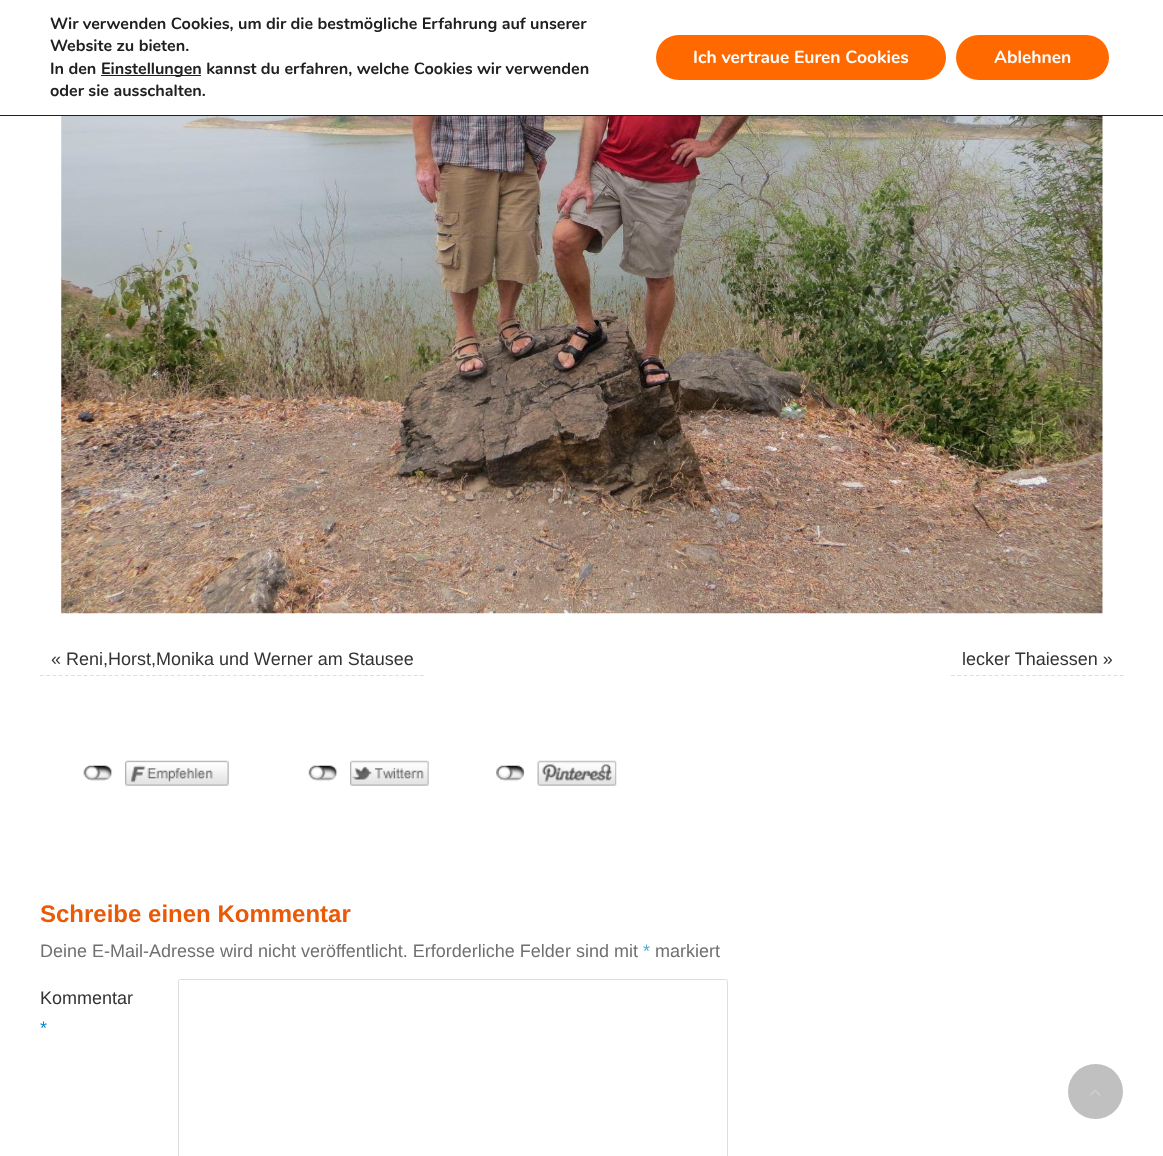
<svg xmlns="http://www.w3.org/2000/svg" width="1163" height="1156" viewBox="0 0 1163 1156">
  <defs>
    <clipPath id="clip1"><rect x="40" y="644" width="1084" height="32"/></clipPath>
  </defs>
  <rect width="100%" height="100%" fill="#ffffff"/>
  <rect x="0" y="115" width="1163" height="1" fill="#202020"/>
  <text x="50" y="29" font-family="Nunito" font-size="16.25" font-weight="bold" fill="#202020">Wir verwenden Cookies, um dir die bestmögliche Erfahrung auf unserer</text>
  <text x="50" y="51" font-family="Nunito" font-size="16.25" font-weight="bold" fill="#202020">Website zu bieten.</text>
  <text x="50" y="74" font-family="Nunito" font-size="16.25" font-weight="bold" fill="#202020">In den</text>
  <rect x="101" y="75" width="100" height="1" fill="#202020"/>
  <text x="101" y="74" font-family="Nunito" font-size="16.25" font-weight="bold" fill="#202020">Einstellungen kannst du erfahren, welche Cookies wir verwenden</text>
  <text x="50" y="96" font-family="Nunito" font-size="16.25" font-weight="bold" fill="#202020">oder sie ausschalten.</text>
  <rect x="656" y="35" width="290" height="45" rx="22.5" fill="#ff6900"/>
  <text x="693" y="63" font-family="Nunito" font-size="17.5" font-weight="bold" fill="#ffffff">Ich vertraue Euren Cookies</text>
  <rect x="956" y="35" width="153" height="45" rx="22.5" fill="#ff6900"/>
  <text x="994" y="63" font-family="Nunito" font-size="17.5" font-weight="bold" fill="#ffffff">Ablehnen</text>
  <image x="61" y="116" width="1042" height="498" href="img1.png"/>
  <g clip-path="url(#clip1)">
    <path d="M40 675.5H424" fill="none" stroke="#dddddd" stroke-width="1.2" stroke-dasharray="3.75 2.48"/>
  </g>
  <text x="51" y="665" font-family="Liberation Sans" font-size="18" fill="#333333">« Reni,Horst,Monika und Werner am Stausee</text>
  <g clip-path="url(#clip1)">
    <path d="M951 675.5H1124" fill="none" stroke="#dddddd" stroke-width="1.2" stroke-dasharray="3.75 2.5"/>
  </g>
  <text x="962" y="665" font-family="Liberation Sans" font-size="18" fill="#333333">lecker Thaiessen »</text>
  <image x="83" y="765" width="30" height="16" href="img2.png"/>
  <image x="125" y="760" width="104" height="26" href="img3.png"/>
  <image x="308" y="765" width="30" height="16" href="img4.png"/>
  <image x="350" y="760" width="79" height="26" href="img5.png"/>
  <image x="496" y="765" width="29" height="16" href="img6.png"/>
  <image x="537" y="760" width="80" height="26" href="img7.png"/>
  <text x="40" y="922" font-family="Liberation Sans" font-size="24" font-weight="bold" fill="#ea5905">Schreibe einen Kommentar</text>
  <text x="40" y="957" font-family="Liberation Sans" font-size="18" fill="#707070">Deine E-Mail-Adresse wird nicht veröffentlicht. Erforderliche Felder sind mit</text>
  <text x="643" y="957" font-family="Liberation Sans" font-size="18" fill="#56aadb">*</text>
  <text x="655" y="957" font-family="Liberation Sans" font-size="18" fill="#707070">markiert</text>
  <text x="40" y="1004" font-family="Liberation Sans" font-size="18" fill="#333333">Kommentar</text>
  <text x="40" y="1034" font-family="Liberation Sans" font-size="18" fill="#0d85cc">*</text>
  <rect x="178.5" y="979.5" width="549" height="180" rx="2" fill="none" stroke="#dddddd"/>
  <circle cx="1095.5" cy="1091.5" r="27.5" fill="#c0c0c0"/>
  <image x="1090" y="1089" width="11" height="7" href="img8.png"/>
</svg>
